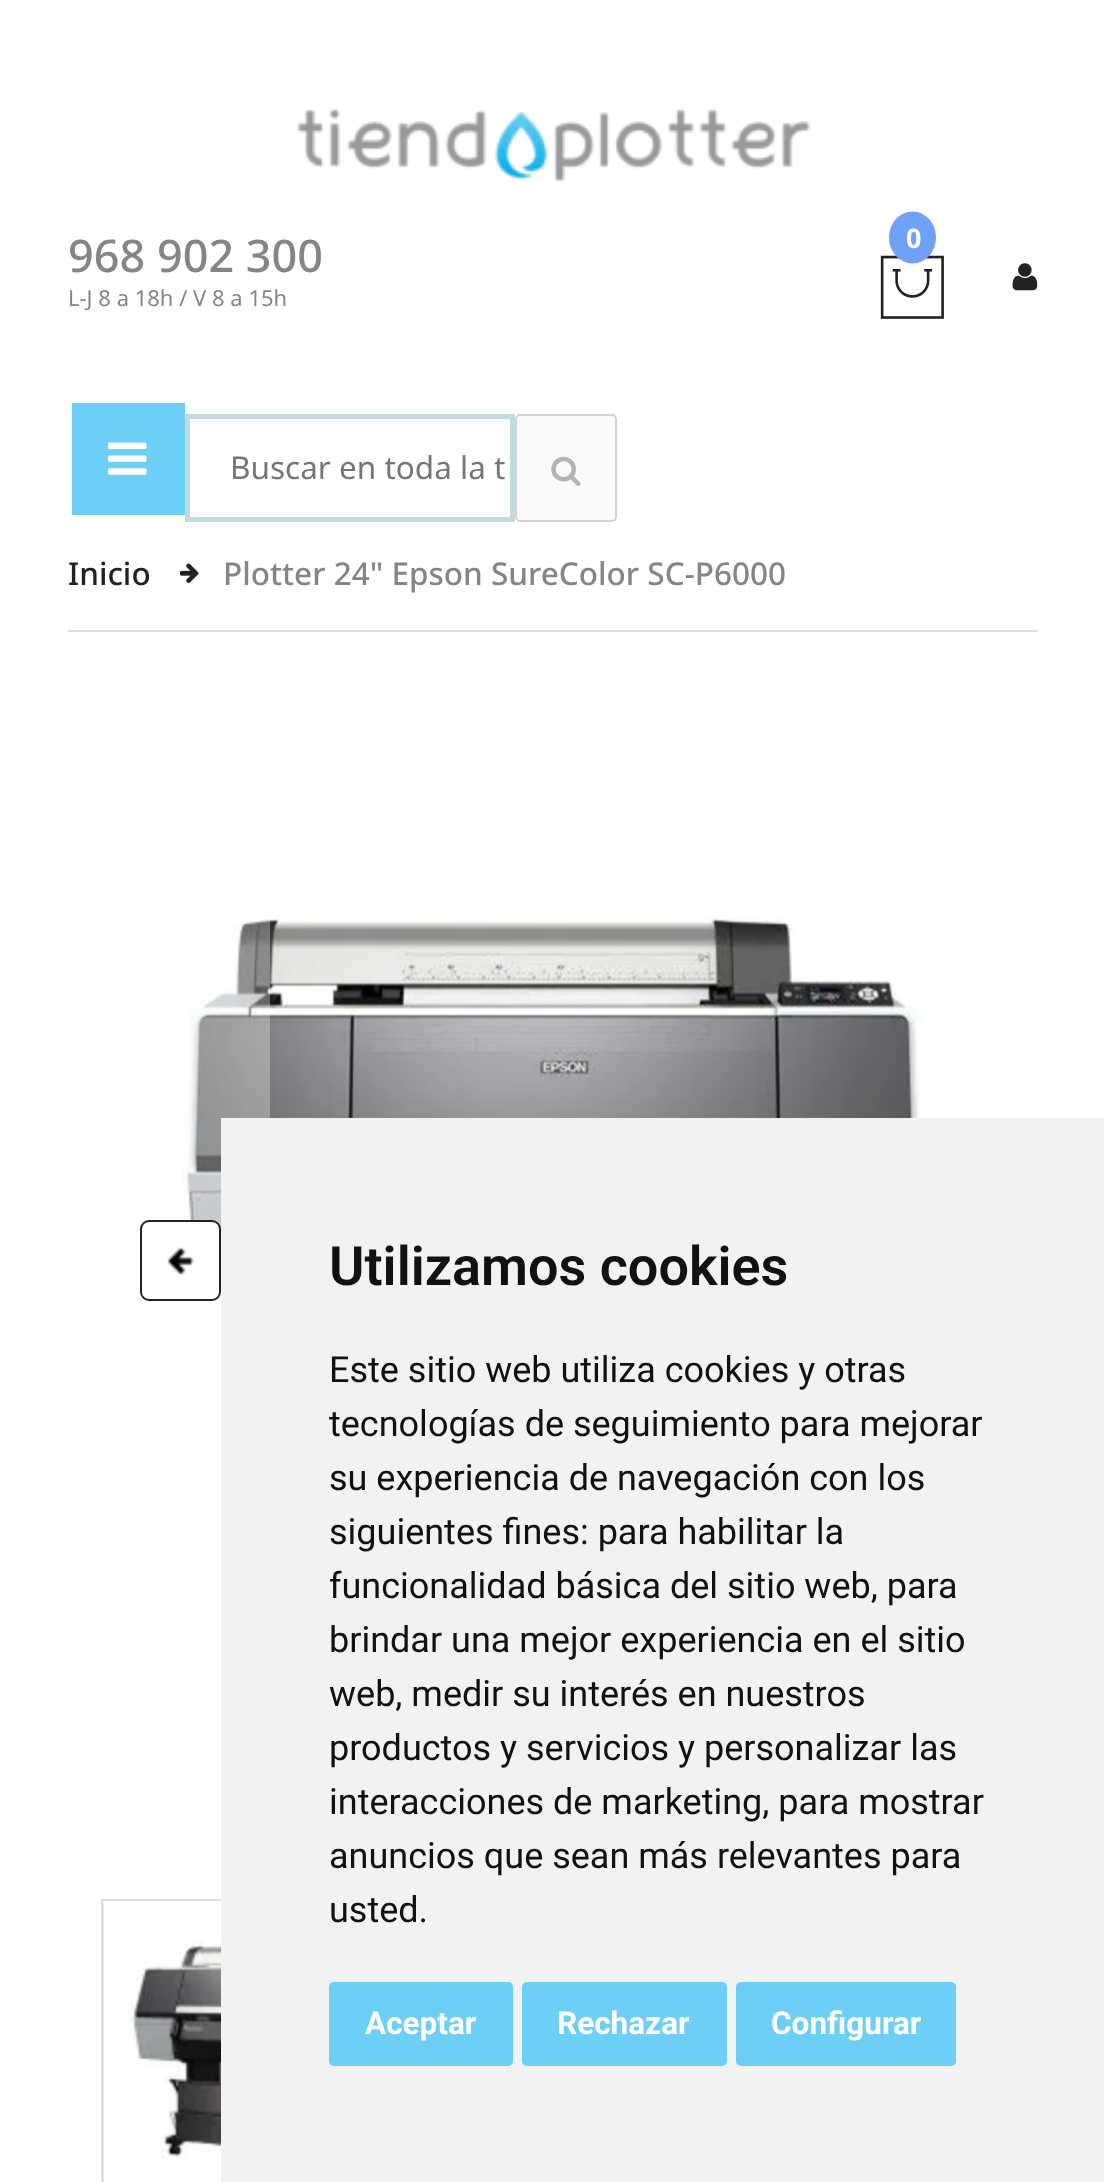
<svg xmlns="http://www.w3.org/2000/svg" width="1104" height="2182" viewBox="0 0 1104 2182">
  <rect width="100%" height="100%" fill="#ffffff"/>
  <image x="296" y="108" width="515" height="75" href="img1.png"/>
  <text x="68" y="272" font-family="Noto Sans" font-size="45" font-weight="500" fill="#858585">968 902 300</text>
  <text x="68" y="306" font-family="Noto Sans" font-size="22" fill="#858585">L-J 8 a 18h / V 8 a 15h</text>
  <image x="880" y="255" width="64" height="64" href="img2.png"/>
  <ellipse cx="912.5" cy="237.5" rx="23.5" ry="26" fill="#6fa2f7"/>
  <text x="906" y="248" font-family="Noto Sans" font-size="27" font-weight="bold" fill="#ffffff">0</text>
  <image x="1012" y="263" width="26" height="28" href="img3.png"/>
  <rect x="72" y="403" width="113" height="112" fill="#6dcff6"/>
  <image x="108" y="442" width="39" height="33" href="img4.png"/>
  <rect x="187.5" y="416.5" width="325" height="103" fill="none" stroke="#bddcda" stroke-width="5"/>
  <text x="230" y="479" font-family="Noto Sans" font-size="31.5" fill="#757575">Buscar en toda la t</text>
  <rect x="516" y="415" width="100" height="106" rx="4" fill="#fafafa" stroke="#d2d2d2" stroke-width="2"/>
  <image x="551" y="456" width="30" height="30" href="img5.png"/>
  <rect x="68" y="630" width="969" height="2" fill="#dddddd"/>
  <text x="68" y="585" font-family="Noto Sans" font-size="31.5" font-weight="500" fill="#222222">Inicio</text>
  <image x="180" y="563" width="19" height="20" href="img6.png"/>
  <text x="223" y="585" font-family="Noto Sans" font-size="31.5" font-weight="500" fill="#858585">Plotter 24" Epson SureColor SC-P6000</text>
  <image x="182" y="912" width="745" height="693" href="img7.png"/>
  <rect x="186" y="919" width="84" height="382" fill="#ffffff" fill-opacity="0.3"/>
  <rect x="140" y="1220" width="81" height="81" rx="9" fill="#ffffff"/>
  <image x="167" y="1247" width="28" height="28" href="img8.png"/>
  <rect x="141" y="1221" width="79" height="79" rx="8" fill="none" stroke="#222222" stroke-width="2"/>
  <rect x="103" y="1901" width="1" height="281" fill="#ebebeb"/>
  <rect x="102" y="1900" width="313" height="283" fill="none" stroke="#dddddd" stroke-width="2"/>
  <image x="104" y="1901" width="117" height="281" href="img9.png"/>
  <rect x="221" y="1118" width="883" height="1064" fill="#f2f2f2"/>
  <text x="329" y="1285" font-family="Roboto" font-size="54" font-weight="600" fill="#111111">Utilizamos cookies</text>
  <text x="329" y="1382" font-family="Roboto" font-size="36" fill="#111111">Este sitio web utiliza cookies y otras</text>
  <text x="329" y="1436" font-family="Roboto" font-size="36" fill="#111111">tecnologías de seguimiento para mejorar</text>
  <text x="329" y="1490" font-family="Roboto" font-size="36" fill="#111111">su experiencia de navegación con los</text>
  <text x="329" y="1544" font-family="Roboto" font-size="36" fill="#111111">siguientes fines: para habilitar la</text>
  <text x="329" y="1598" font-family="Roboto" font-size="36" fill="#111111">funcionalidad básica del sitio web, para</text>
  <text x="329" y="1652" font-family="Roboto" font-size="36" fill="#111111">brindar una mejor experiencia en el sitio</text>
  <text x="329" y="1706" font-family="Roboto" font-size="36" fill="#111111">web, medir su interés en nuestros</text>
  <text x="329" y="1760" font-family="Roboto" font-size="36" fill="#111111">productos y servicios y personalizar las</text>
  <text x="329" y="1814" font-family="Roboto" font-size="36" fill="#111111">interacciones de marketing, para mostrar</text>
  <text x="329" y="1868" font-family="Roboto" font-size="36" fill="#111111">anuncios que sean más relevantes para</text>
  <text x="329" y="1922" font-family="Roboto" font-size="36" fill="#111111">usted.</text>
  <rect x="329" y="1982" width="184" height="84" rx="5" fill="#6dcff6"/>
  <text x="365" y="2034" font-family="Roboto" font-size="31.5" font-weight="bold" fill="#ffffff">Aceptar</text>
  <rect x="522" y="1982" width="205" height="84" rx="5" fill="#6dcff6"/>
  <text x="557" y="2034" font-family="Roboto" font-size="31.5" font-weight="bold" fill="#ffffff">Rechazar</text>
  <rect x="736" y="1982" width="220" height="84" rx="5" fill="#6dcff6"/>
  <text x="771" y="2034" font-family="Roboto" font-size="31.5" font-weight="bold" fill="#ffffff">Configurar</text>
</svg>
